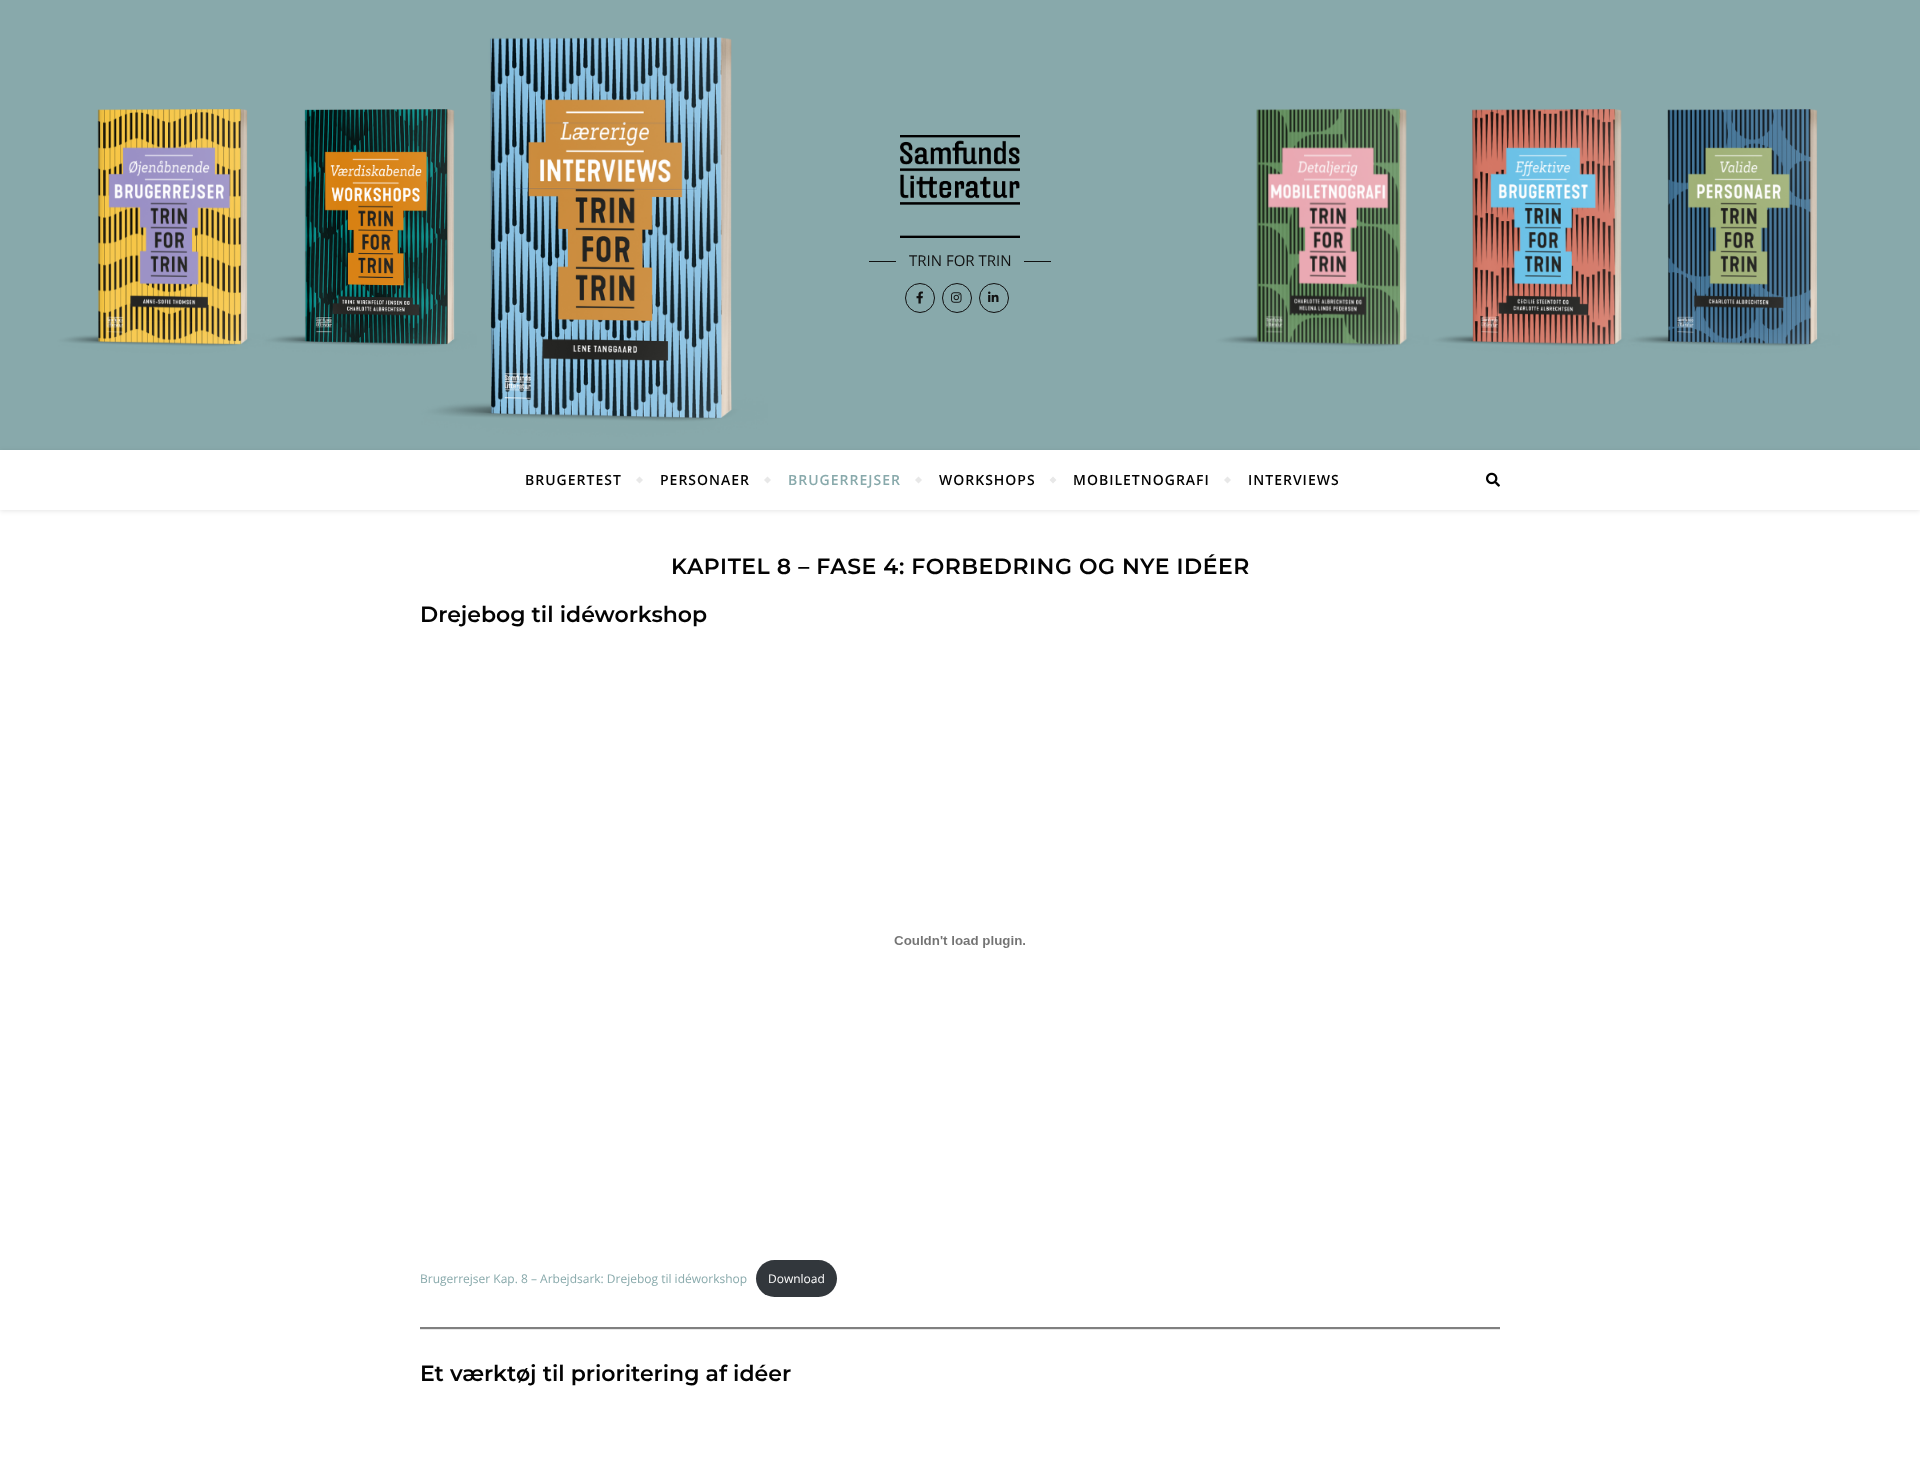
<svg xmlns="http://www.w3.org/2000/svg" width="1920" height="1468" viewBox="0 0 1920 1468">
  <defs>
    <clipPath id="clip1"><path d="M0 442H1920V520H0ZM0 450H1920V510H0Z" clip-rule="evenodd"/></clipPath>
    <filter id="blur1" x="-50%" y="-200%" width="200%" height="500%"><feGaussianBlur stdDeviation="2.5"/></filter>
  </defs>
  <rect width="100%" height="100%" fill="#ffffff"/>
  <image x="0" y="0" width="1920" height="450" href="img1.png"/>
  <image x="900" y="135" width="120" height="103" href="img2.png"/>
  <rect x="869" y="261" width="27" height="1" fill="#111111"/>
  <text x="909" y="266" font-family="Open Sans" font-size="15" fill="#111111">TRIN FOR TRIN</text>
  <rect x="1024" y="261" width="27" height="1" fill="#111111"/>
  <circle cx="920" cy="298" r="14.5" fill="none" stroke="#111111"/>
  <image x="916" y="291" width="7" height="13" href="img3.png"/>
  <circle cx="957" cy="298" r="14.5" fill="none" stroke="#111111"/>
  <image x="951" y="292" width="11" height="11" href="img4.png"/>
  <circle cx="994" cy="298" r="14.5" fill="none" stroke="#111111"/>
  <image x="988" y="291" width="11" height="11" href="img5.png"/>
  <g clip-path="url(#clip1)">
    <rect x="0" y="451" width="1920" height="60" fill="#000000" fill-opacity="0.1" filter="url(#blur1)"/>
  </g>
  <text x="525" y="485" font-family="Open Sans" font-size="14" font-weight="600" letter-spacing="1" fill="#030303">BRUGERTEST</text>
  <path d="M636 480L639.5 476.5L643 480L639.5 483.5Z" fill="#e8e8e8"/>
  <text x="660" y="485" font-family="Open Sans" font-size="14" font-weight="600" letter-spacing="1" fill="#030303">PERSONAER</text>
  <path d="M764 480L767.5 476.5L771 480L767.5 483.5Z" fill="#e8e8e8"/>
  <text x="788" y="485" font-family="Open Sans" font-size="14" font-weight="600" letter-spacing="1" fill="#88a9ab">BRUGERREJSER</text>
  <path d="M915 480L918.5 476.5L922 480L918.5 483.5Z" fill="#e8e8e8"/>
  <text x="939" y="485" font-family="Open Sans" font-size="14" font-weight="600" letter-spacing="1" fill="#030303">WORKSHOPS</text>
  <path d="M1049.5 480L1053 476.5L1056.5 480L1053 483.5Z" fill="#e8e8e8"/>
  <text x="1073" y="485" font-family="Open Sans" font-size="14" font-weight="600" letter-spacing="1" fill="#030303">MOBILETNOGRAFI</text>
  <path d="M1224 480L1227.5 476.5L1231 480L1227.5 483.5Z" fill="#e8e8e8"/>
  <text x="1248" y="485" font-family="Open Sans" font-size="14" font-weight="600" letter-spacing="1" fill="#030303">INTERVIEWS</text>
  <image x="1486" y="472" width="14" height="15" href="img6.png"/>
  <text x="671" y="574" font-family="Montserrat" font-size="22" font-weight="600" letter-spacing="0.5" fill="#030303">KAPITEL 8 – FASE 4: FORBEDRING OG NYE IDÉER</text>
  <text x="420" y="622" font-family="Montserrat" font-size="22" font-weight="600" fill="#030303">Drejebog til idéworkshop</text>
  <image x="894" y="936" width="131" height="12" href="img7.png"/>
  <text x="420" y="1283" font-family="Open Sans" font-size="12" fill="#88a9ab">Brugerrejser Kap. 8 – Arbejdsark: Drejebog til idéworkshop</text>
  <rect x="756" y="1260" width="81" height="37" rx="18.5" fill="#32373c"/>
  <text x="768" y="1283" font-family="Open Sans" font-size="12" fill="#ffffff">Download</text>
  <rect x="420" y="1329" width="1080" height="1" fill="#e8e8e8"/>
  <rect x="420" y="1327" width="1080" height="2" fill="#808080"/>
  <text x="420" y="1381" font-family="Montserrat" font-size="22" font-weight="600" fill="#030303">Et værktøj til prioritering af idéer</text>
</svg>
